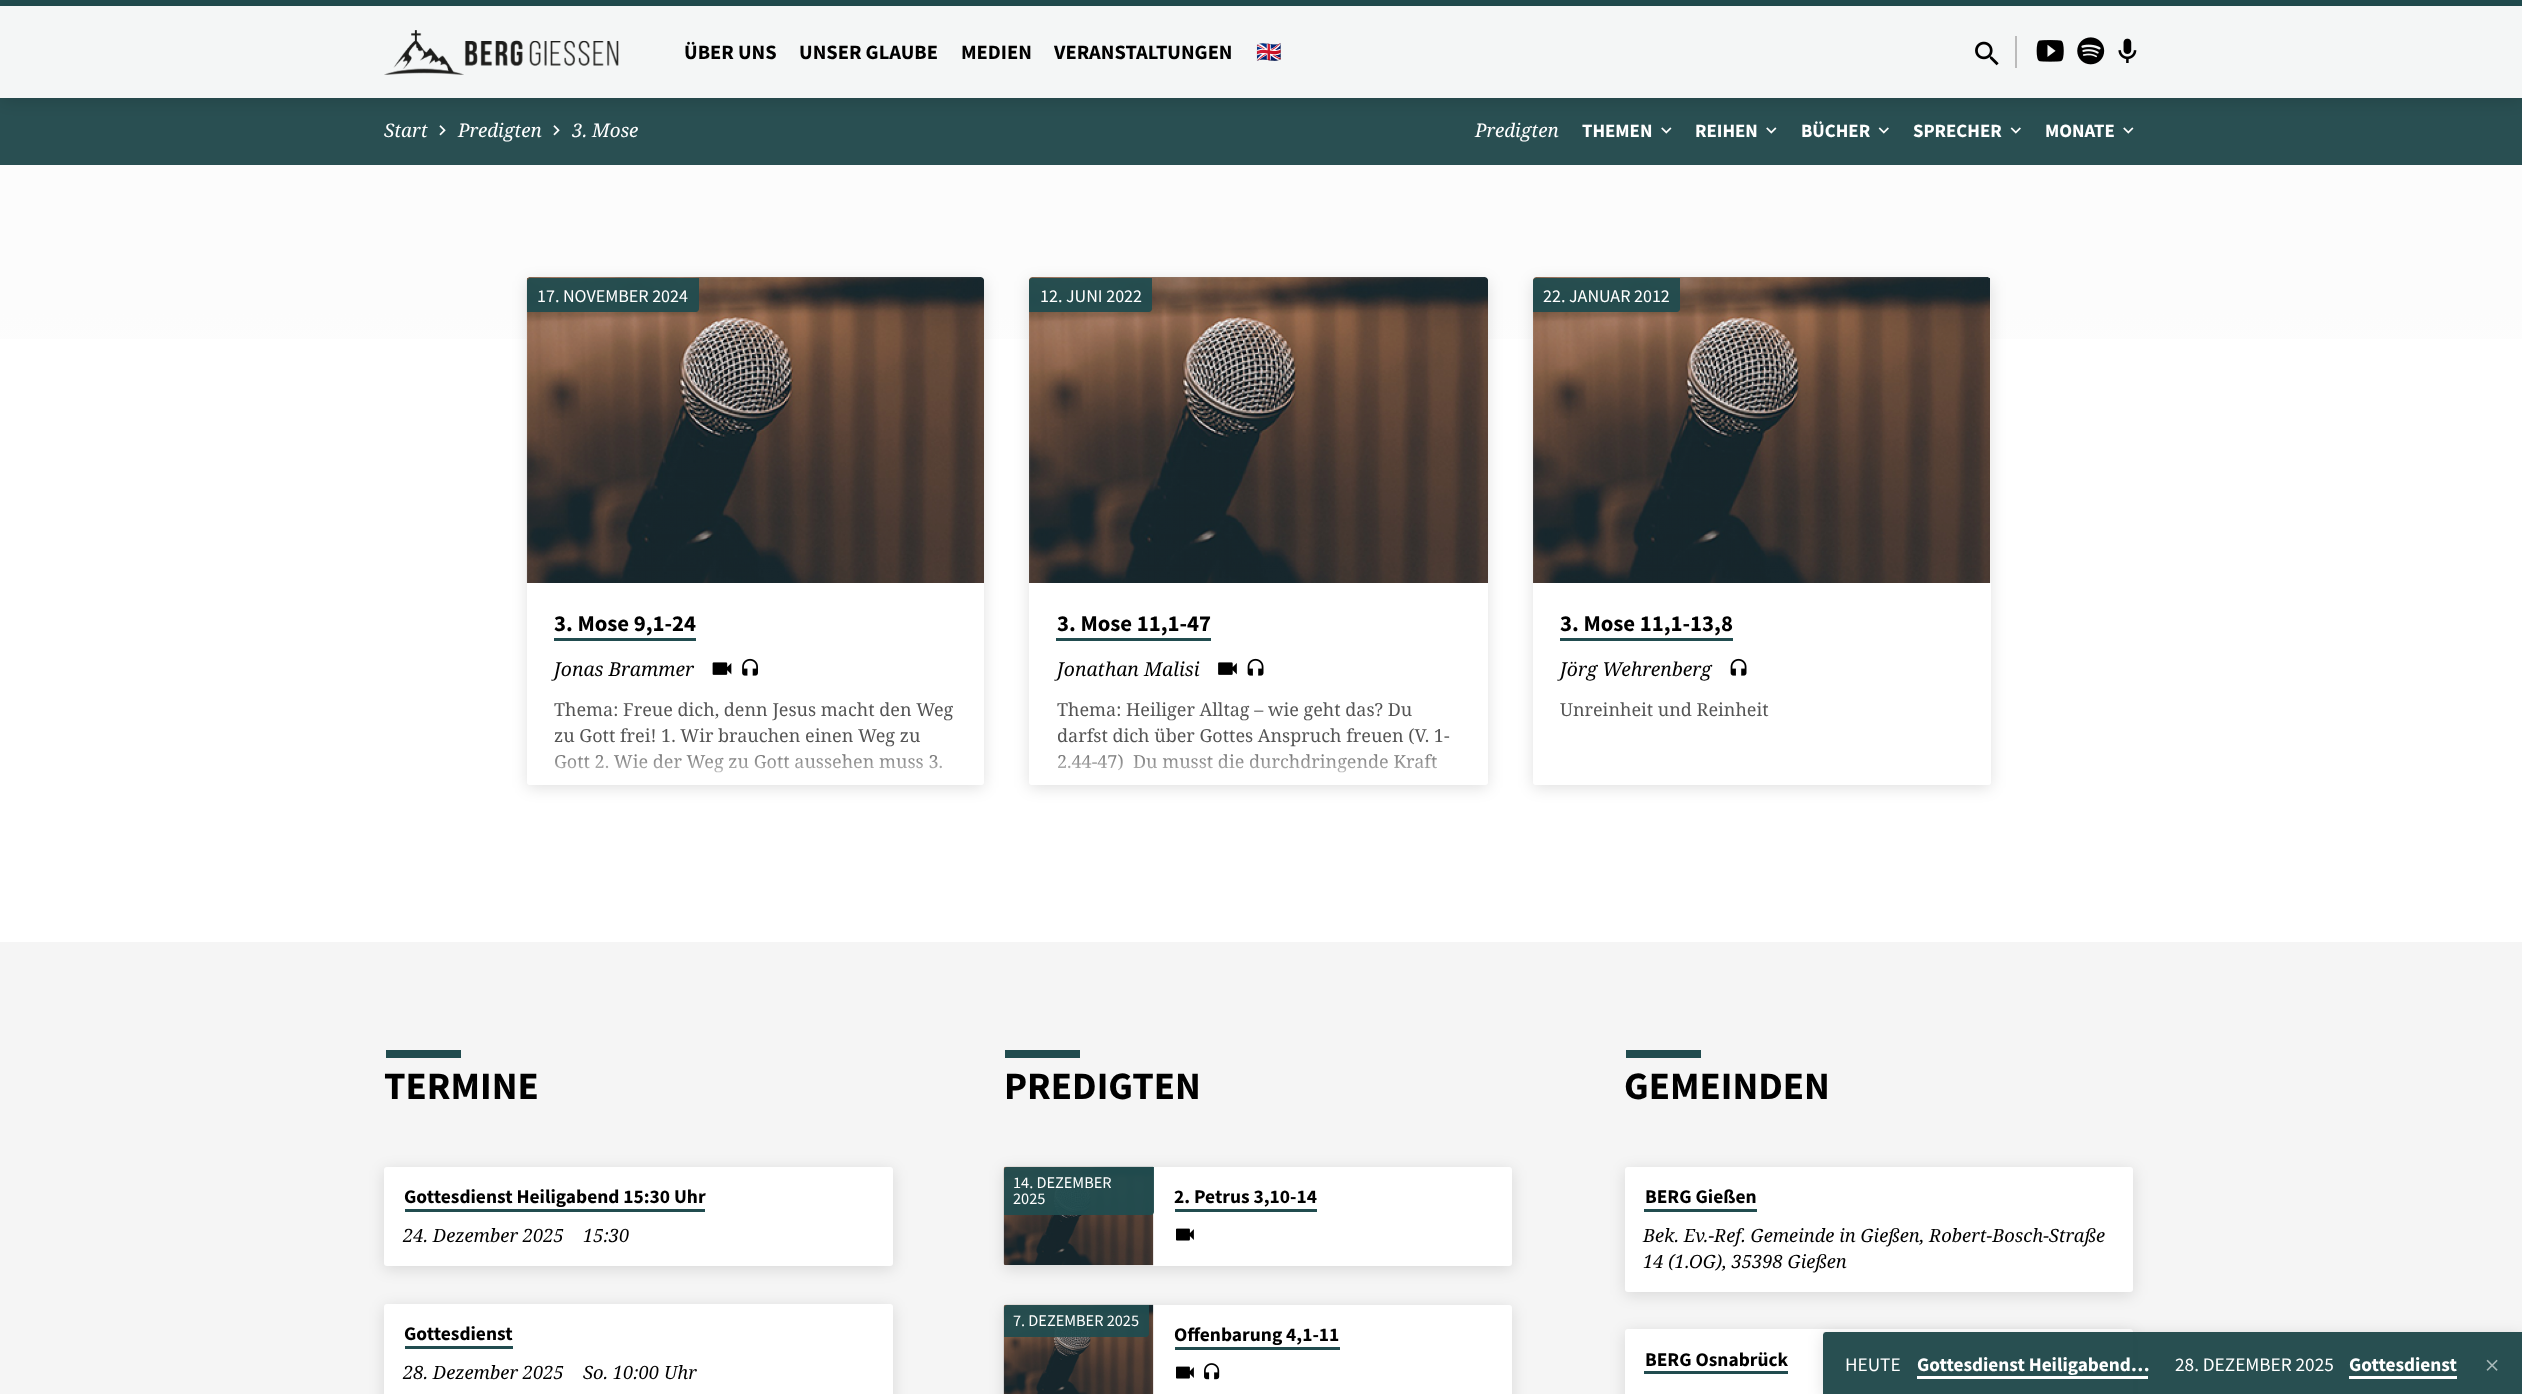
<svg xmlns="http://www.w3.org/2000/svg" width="2522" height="1394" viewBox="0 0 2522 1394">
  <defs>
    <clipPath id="clip1"><path d="M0 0H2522V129H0ZM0 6H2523V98H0Z" clip-rule="evenodd"/></clipPath>
    <filter id="blur1" x="-50%" y="-200%" width="200%" height="500%"><feGaussianBlur stdDeviation="9"/></filter>
    <linearGradient id="g1" gradientUnits="userSpaceOnUse" x1="1262" y1="165" x2="1262" y2="942"><stop offset="0.19" stop-color="#fcfcfc"/><stop offset="0.39" stop-color="#ffffff"/></linearGradient>
    <filter id="blur2" x="-50%" y="-200%" width="200%" height="500%"><feGaussianBlur stdDeviation="7.5"/></filter>
    <linearGradient id="g2" gradientUnits="userSpaceOnUse" x1="755" y1="747" x2="755" y2="785"><stop offset="0" stop-color="#ffffff" stop-opacity="0"/><stop offset="1" stop-color="#ffffff" stop-opacity="0.9"/></linearGradient>
    <linearGradient id="g3" gradientUnits="userSpaceOnUse" x1="1259" y1="747" x2="1259" y2="785"><stop offset="0" stop-color="#ffffff" stop-opacity="0"/><stop offset="1" stop-color="#ffffff" stop-opacity="0.9"/></linearGradient>
    <linearGradient id="g4" gradientUnits="userSpaceOnUse" x1="1762" y1="747" x2="1762" y2="785"><stop offset="0" stop-color="#ffffff" stop-opacity="0"/><stop offset="1" stop-color="#ffffff" stop-opacity="0.9"/></linearGradient>
    <clipPath id="clip2"><path d="M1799 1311H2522V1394H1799ZM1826 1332H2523V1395H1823V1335C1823 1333.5 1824.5 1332 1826 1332Z" clip-rule="evenodd"/></clipPath>
  </defs>
  <rect width="100%" height="100%" fill="#ffffff"/>
  <rect x="0" y="0" width="2522" height="165" fill="#294f52"/>
  <rect x="0" y="0" width="2522" height="6" fill="#214c4f" fill-opacity="0.95"/>
  <rect x="0" y="6" width="2522" height="92" fill="#ffffff" fill-opacity="0.95"/>
  <image x="439" y="125" width="7" height="11" href="img6.png"/>
  <image x="553" y="125" width="7" height="11" href="img6.png"/>
  <image x="1661" y="127" width="11" height="7" href="img7.png"/>
  <image x="1766" y="127" width="11" height="7" href="img7.png"/>
  <image x="1878" y="127" width="11" height="7" href="img8.png"/>
  <image x="2010" y="127" width="11" height="7" href="img8.png"/>
  <image x="2123" y="127" width="11" height="7" href="img7.png"/>
  <g clip-path="url(#clip1)">
    <rect x="0" y="9" width="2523" height="92" fill="#000000" fill-opacity="0.14" filter="url(#blur1)"/>
  </g>
  <image x="384" y="30" width="235" height="45" href="img1.png"/>
  <text x="684" y="59" font-family="Source Sans Pro" font-size="20.5" font-weight="bold" fill="#000000">ÜBER UNS</text>
  <text x="799" y="59" font-family="Source Sans Pro" font-size="20.5" font-weight="bold" fill="#000000">UNSER GLAUBE</text>
  <text x="961" y="59" font-family="Source Sans Pro" font-size="20.5" font-weight="bold" fill="#000000">MEDIEN</text>
  <text x="1054" y="59" font-family="Source Sans Pro" font-size="20.5" font-weight="bold" fill="#000000">VERANSTALTUNGEN</text>
  <text x="1256" y="59" font-family="Noto Color Emoji" font-size="20.5" font-weight="bold" fill="#000000">🇬🇧</text>
  <image x="1975" y="41" width="24" height="25" href="img2.png"/>
  <rect x="2015" y="36" width="2" height="32" fill="#bbbbbb"/>
  <image x="2036" y="40" width="28" height="22" href="img3.png"/>
  <image x="2077" y="37" width="28" height="28" href="img4.png"/>
  <image x="2118" y="38" width="19" height="25" href="img5.png"/>
  <text x="384" y="137" font-family="Noto Serif" font-size="18.75" font-style="italic" fill="#ffffff">Start</text>
  <text x="458" y="137" font-family="Noto Serif" font-size="18.75" font-style="italic" fill="#ffffff">Predigten</text>
  <text x="572" y="137" font-family="Noto Serif" font-size="18.75" font-style="italic" fill="#ffffff">3. Mose</text>
  <text x="1475" y="137" font-family="Noto Serif" font-size="18.75" font-style="italic" fill="#ffffff">Predigten</text>
  <text x="1582" y="137" font-family="Source Sans Pro" font-size="18.75" font-weight="bold" fill="#ffffff">THEMEN</text>
  <text x="1695" y="137" font-family="Source Sans Pro" font-size="18.75" font-weight="bold" fill="#ffffff">REIHEN</text>
  <text x="1801" y="137" font-family="Source Sans Pro" font-size="18.75" font-weight="bold" fill="#ffffff">BÜCHER</text>
  <text x="1913" y="137" font-family="Source Sans Pro" font-size="18.75" font-weight="bold" fill="#ffffff">SPRECHER</text>
  <text x="2045" y="137" font-family="Source Sans Pro" font-size="18.75" font-weight="bold" fill="#ffffff">MONATE</text>
  <rect x="0" y="165" width="2522" height="174" fill="url(#g1)"/>
  <rect x="527" y="281" width="457" height="507" rx="3" fill="#000000" fill-opacity="0.12" filter="url(#blur2)"/>
  <rect x="527" y="278" width="457" height="507" rx="3" fill="#ffffff"/>
  <image x="526" y="277" width="458" height="306" href="img9.png"/>
  <path d="M530 278H699V309C699 310.5 697.5 312 696 312H527V281C527 279.5 528.5 278 530 278Z" fill="#214c4f" fill-opacity="0.95"/>
  <text x="537" y="302" font-family="Source Sans Pro" font-size="18" fill="#ffffff">17. NOVEMBER 2024</text>
  <text x="554" y="631" font-family="Source Sans Pro" font-size="22.75" font-weight="bold" fill="#000000">3. Mose 9,1-24</text>
  <rect x="554" y="638" width="142" height="3" fill="#214c4f"/>
  <text x="554" y="676" font-family="Noto Serif" font-size="19.25" font-style="italic" fill="#000000">Jonas Brammer</text>
  <image x="712" y="662" width="20" height="13" href="img10.png"/>
  <image x="742" y="658" width="16" height="18" href="img11.png"/>
  <text x="554" y="716" font-family="Noto Serif" font-size="18" fill="#555555">Thema: Freue dich, denn Jesus macht den Weg</text>
  <text x="554" y="742" font-family="Noto Serif" font-size="18" fill="#555555">zu Gott frei! 1. Wir brauchen einen Weg zu</text>
  <text x="554" y="768" font-family="Noto Serif" font-size="18" fill="#555555">Gott 2. Wie der Weg zu Gott aussehen muss 3.</text>
  <path d="M527 747H984V782C984 783.5 982.5 785 981 785H530C528.5 785 527 783.5 527 782Z" fill="url(#g2)"/>
  <rect x="1029" y="281" width="459" height="507" rx="3" fill="#000000" fill-opacity="0.12" filter="url(#blur2)"/>
  <rect x="1029" y="278" width="459" height="507" rx="3" fill="#ffffff"/>
  <image x="1029" y="277" width="459" height="306" href="img12.png"/>
  <path d="M1032 278H1152V309C1152 310.5 1150.5 312 1149 312H1029V281C1029 279.5 1030.5 278 1032 278Z" fill="#214c4f" fill-opacity="0.95"/>
  <text x="1040" y="302" font-family="Source Sans Pro" font-size="18" fill="#ffffff">12. JUNI 2022</text>
  <text x="1057" y="631" font-family="Source Sans Pro" font-size="22.75" font-weight="bold" fill="#000000">3. Mose 11,1-47</text>
  <rect x="1056" y="638" width="155" height="3" fill="#214c4f"/>
  <text x="1057" y="676" font-family="Noto Serif" font-size="19.25" font-style="italic" fill="#000000">Jonathan Malisi</text>
  <image x="1218" y="662" width="19" height="13" href="img13.png"/>
  <image x="1247" y="658" width="17" height="18" href="img14.png"/>
  <text x="1057" y="716" font-family="Noto Serif" font-size="18" fill="#555555">Thema: Heiliger Alltag – wie geht das? Du</text>
  <text x="1057" y="742" font-family="Noto Serif" font-size="18" fill="#555555">darfst dich über Gottes Anspruch freuen (V. 1-</text>
  <text x="1057" y="768" font-family="Noto Serif" font-size="18" fill="#555555" xml:space="preserve">2.44-47)  Du musst die durchdringende Kraft</text>
  <path d="M1029 747H1488V782C1488 783.5 1486.5 785 1485 785H1032C1030.5 785 1029 783.5 1029 782Z" fill="url(#g3)"/>
  <rect x="1533" y="281" width="458" height="507" rx="3" fill="#000000" fill-opacity="0.12" filter="url(#blur2)"/>
  <rect x="1533" y="278" width="458" height="507" rx="3" fill="#ffffff"/>
  <image x="1533" y="277" width="458" height="306" href="img15.png"/>
  <path d="M1536 278H1680V309C1680 310.5 1678.5 312 1677 312H1533V281C1533 279.5 1534.5 278 1536 278Z" fill="#214c4f" fill-opacity="0.95"/>
  <text x="1543" y="302" font-family="Source Sans Pro" font-size="18" fill="#ffffff">22. JANUAR 2012</text>
  <text x="1560" y="631" font-family="Source Sans Pro" font-size="22.75" font-weight="bold" fill="#000000">3. Mose 11,1-13,8</text>
  <rect x="1560" y="638" width="173" height="3" fill="#214c4f"/>
  <text x="1560" y="676" font-family="Noto Serif" font-size="19.25" font-style="italic" fill="#000000">Jörg Wehrenberg</text>
  <image x="1730" y="658" width="17" height="18" href="img14.png"/>
  <text x="1560" y="716" font-family="Noto Serif" font-size="18" fill="#555555">Unreinheit und Reinheit</text>
  <path d="M1533 747H1991V782C1991 783.5 1989.5 785 1988 785H1536C1534.5 785 1533 783.5 1533 782Z" fill="url(#g4)"/>
  <rect x="0" y="942" width="2522" height="452" fill="#f5f5f5"/>
  <rect x="386" y="1050" width="75" height="8" fill="#214c4f"/>
  <text x="384" y="1099" font-family="Source Sans Pro" font-size="38.75" font-weight="bold" fill="#000000">TERMINE</text>
  <rect x="384" y="1170" width="509" height="99" rx="3" fill="#000000" fill-opacity="0.12" filter="url(#blur2)"/>
  <rect x="384" y="1167" width="509" height="99" rx="3" fill="#ffffff"/>
  <text x="404" y="1203" font-family="Source Sans Pro" font-size="19.4" font-weight="bold" fill="#000000">Gottesdienst Heiligabend 15:30 Uhr</text>
  <rect x="405" y="1209" width="300" height="3" fill="#214c4f"/>
  <text x="403" y="1242" font-family="Noto Serif" font-size="18.35" font-style="italic" fill="#000000">24. Dezember 2025</text>
  <text x="583" y="1242" font-family="Noto Serif" font-size="18.35" font-style="italic" fill="#000000">15:30</text>
  <rect x="384" y="1307" width="509" height="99" rx="3" fill="#000000" fill-opacity="0.12" filter="url(#blur2)"/>
  <rect x="384" y="1304" width="509" height="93" rx="3" fill="#ffffff"/>
  <text x="404" y="1340" font-family="Source Sans Pro" font-size="19.4" font-weight="bold" fill="#000000">Gottesdienst</text>
  <rect x="405" y="1346" width="108" height="3" fill="#214c4f"/>
  <text x="403" y="1379" font-family="Noto Serif" font-size="18.35" font-style="italic" fill="#000000">28. Dezember 2025</text>
  <text x="583" y="1379" font-family="Noto Serif" font-size="18.35" font-style="italic" fill="#000000">So. 10:00 Uhr</text>
  <rect x="1005" y="1050" width="75" height="8" fill="#214c4f"/>
  <text x="1004" y="1099" font-family="Source Sans Pro" font-size="38.75" font-weight="bold" fill="#000000">PREDIGTEN</text>
  <rect x="1004" y="1170" width="508" height="99" rx="3" fill="#000000" fill-opacity="0.12" filter="url(#blur2)"/>
  <rect x="1004" y="1167" width="508" height="99" rx="3" fill="#ffffff"/>
  <image x="1003" y="1166" width="151" height="100" href="img16.png"/>
  <path d="M1007 1167H1154V1212C1154 1213.5 1152.5 1215 1151 1215H1004V1170C1004 1168.5 1005.5 1167 1007 1167Z" fill="#214c4f" fill-opacity="0.95"/>
  <text x="1013" y="1188" font-family="Source Sans Pro" font-size="16.25" fill="#ffffff">14. DEZEMBER</text>
  <text x="1013" y="1204" font-family="Source Sans Pro" font-size="16.25" fill="#ffffff">2025</text>
  <text x="1174" y="1203" font-family="Source Sans Pro" font-size="19.4" font-weight="bold" fill="#000000">2. Petrus 3,10-14</text>
  <rect x="1175" y="1209" width="142" height="3" fill="#214c4f"/>
  <image x="1176" y="1228" width="18" height="13" href="img17.png"/>
  <rect x="1004" y="1308" width="508" height="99" rx="3" fill="#000000" fill-opacity="0.12" filter="url(#blur2)"/>
  <rect x="1004" y="1305" width="508" height="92" rx="3" fill="#ffffff"/>
  <image x="1003" y="1304" width="151" height="90" href="img18.png"/>
  <path d="M1007 1305H1149V1334C1149 1335.5 1147.5 1337 1146 1337H1004V1308C1004 1306.5 1005.5 1305 1007 1305Z" fill="#214c4f" fill-opacity="0.95"/>
  <text x="1013" y="1326" font-family="Source Sans Pro" font-size="16.25" fill="#ffffff">7. DEZEMBER 2025</text>
  <text x="1174" y="1341" font-family="Source Sans Pro" font-size="19.4" font-weight="bold" fill="#000000">Offenbarung 4,1-11</text>
  <rect x="1175" y="1347" width="165" height="3" fill="#214c4f"/>
  <image x="1176" y="1366" width="18" height="13" href="img17.png"/>
  <image x="1204" y="1363" width="16" height="17" href="img19.png"/>
  <rect x="1626" y="1050" width="75" height="8" fill="#214c4f"/>
  <text x="1624" y="1099" font-family="Source Sans Pro" font-size="38.75" font-weight="bold" fill="#000000">GEMEINDEN</text>
  <rect x="1625" y="1170" width="508" height="125" rx="3" fill="#000000" fill-opacity="0.12" filter="url(#blur2)"/>
  <rect x="1625" y="1167" width="508" height="125" rx="3" fill="#ffffff"/>
  <text x="1645" y="1203" font-family="Source Sans Pro" font-size="19.4" font-weight="bold" fill="#000000">BERG Gießen</text>
  <rect x="1644" y="1209" width="113" height="3" fill="#214c4f"/>
  <text x="1643" y="1242" font-family="Noto Serif" font-size="18.35" font-style="italic" fill="#000000">Bek. Ev.-Ref. Gemeinde in Gießen, Robert-Bosch-Straße</text>
  <text x="1643" y="1268" font-family="Noto Serif" font-size="18.35" font-style="italic" fill="#000000">14 (1.OG), 35398 Gießen</text>
  <rect x="1625" y="1332" width="508" height="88" rx="3" fill="#000000" fill-opacity="0.12" filter="url(#blur2)"/>
  <rect x="1625" y="1329" width="508" height="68" rx="3" fill="#ffffff"/>
  <text x="1645" y="1366" font-family="Source Sans Pro" font-size="19.4" font-weight="bold" fill="#000000">BERG Osnabrück</text>
  <rect x="1644" y="1371" width="144" height="3" fill="#214c4f"/>
  <g clip-path="url(#clip2)">
    <rect x="1823" y="1335" width="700" height="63" rx="3" fill="#000000" fill-opacity="0.12" filter="url(#blur2)"/>
  </g>
  <path d="M1826 1332H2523V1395H1823V1335C1823 1333.5 1824.5 1332 1826 1332Z" fill="#214c4f" fill-opacity="0.95"/>
  <rect x="1823" y="1332" width="699" height="62" fill="#000000" fill-opacity="0.07"/>
  <text x="1845" y="1371" font-family="Source Sans Pro" font-size="19.25" fill="#ffffff">HEUTE</text>
  <text x="1917" y="1371" font-family="Source Sans Pro" font-size="19.25" font-weight="bold" fill="#ffffff">Gottesdienst Heiligabend…</text>
  <rect x="1917" y="1376" width="231" height="3" fill="#ffffff"/>
  <text x="2175" y="1371" font-family="Source Sans Pro" font-size="19.25" fill="#ffffff">28. DEZEMBER 2025</text>
  <text x="2349" y="1371" font-family="Source Sans Pro" font-size="19.25" font-weight="bold" fill="#ffffff">Gottesdienst</text>
  <rect x="2349" y="1376" width="108" height="3" fill="#ffffff"/>
  <image x="2486" y="1359" width="12" height="12" href="img20.png"/>
</svg>
